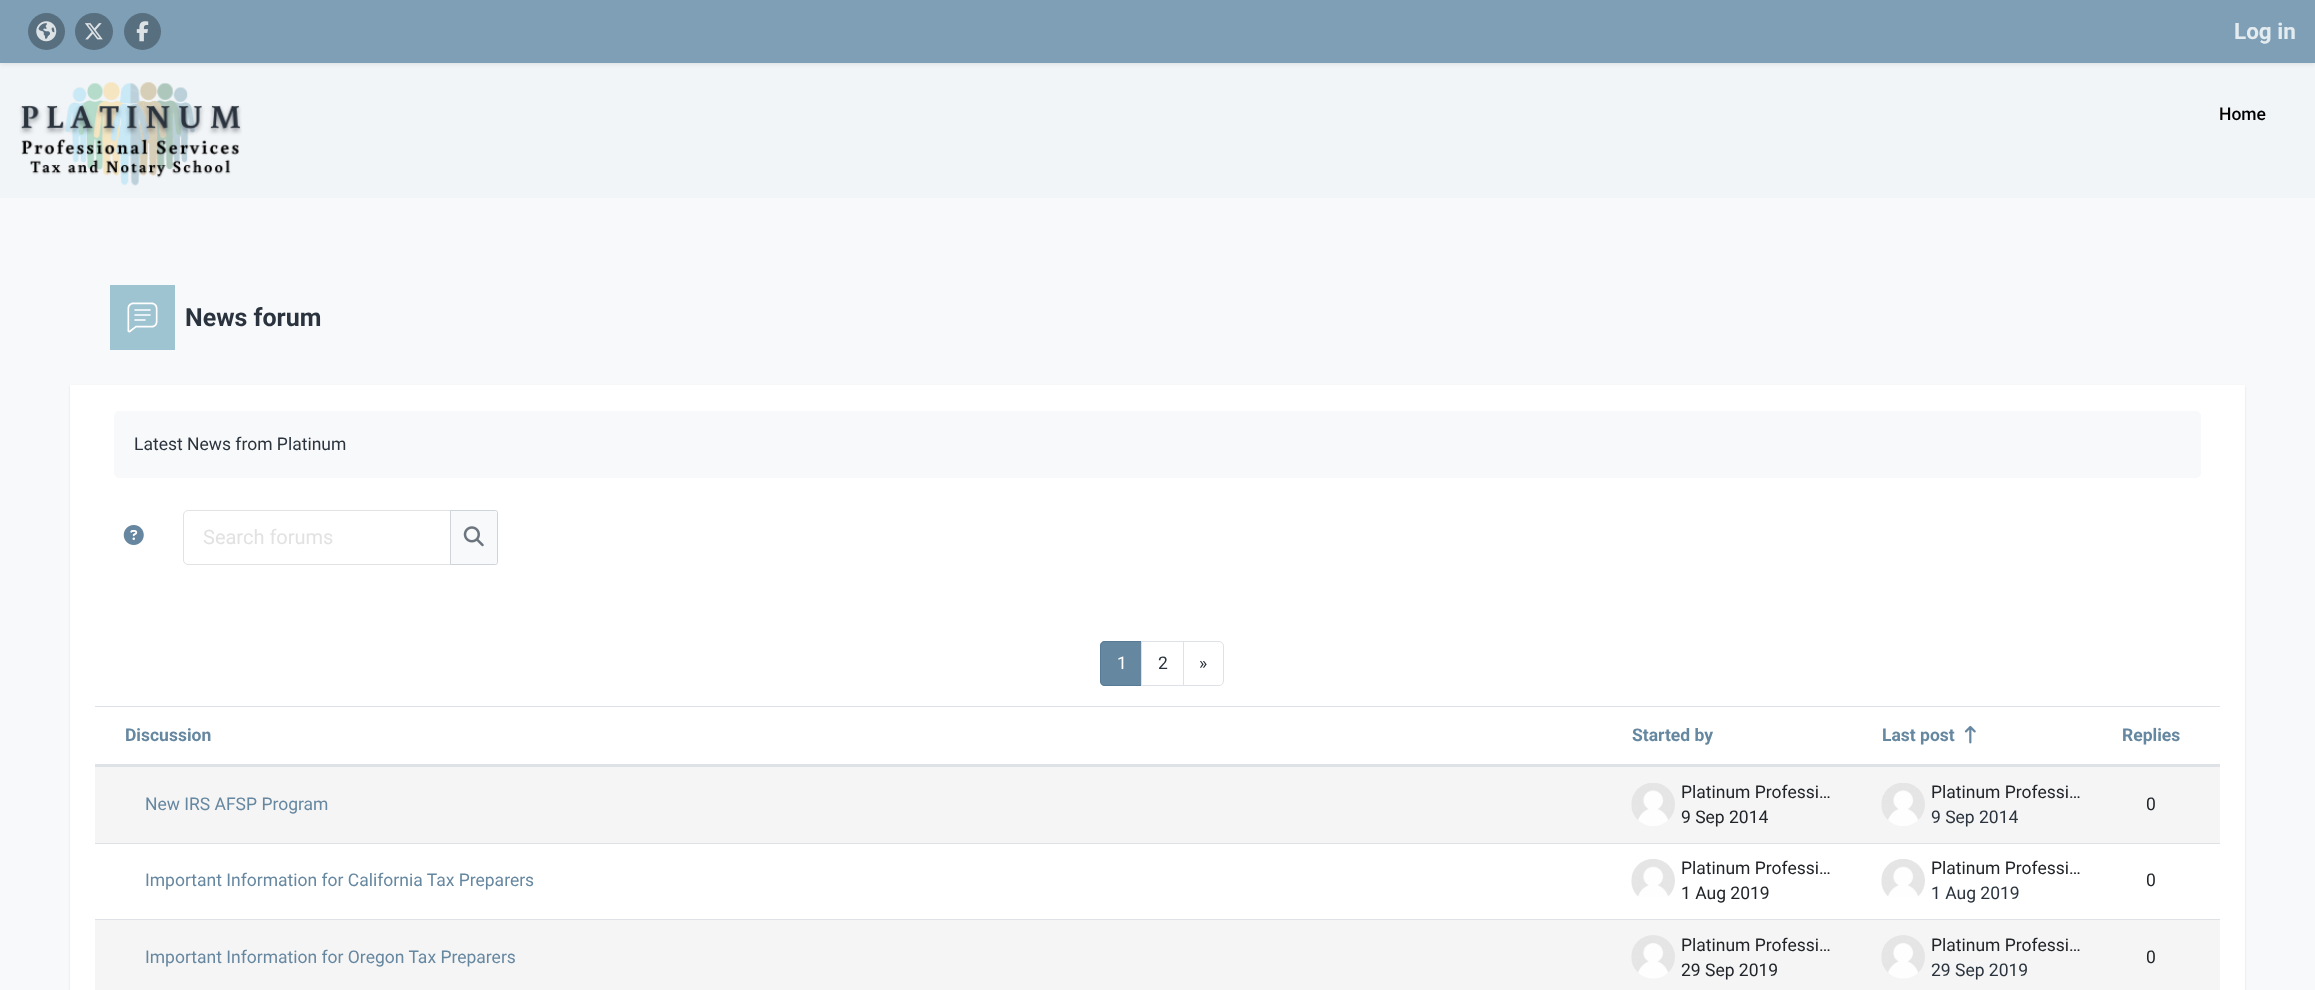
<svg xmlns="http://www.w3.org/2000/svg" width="2315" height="990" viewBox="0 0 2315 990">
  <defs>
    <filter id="blur1" x="-50%" y="-200%" width="200%" height="500%"><feGaussianBlur stdDeviation="2.5"/></filter>
    <filter id="blur2" x="-50%" y="-200%" width="200%" height="500%"><feGaussianBlur stdDeviation="1"/></filter>
  </defs>
  <rect width="100%" height="100%" fill="#f8f9fa"/>
  <rect x="0" y="63" width="2315" height="135" fill="#f2f5f7"/>
  <rect x="0" y="1" width="2315" height="63" fill="#000000" fill-opacity="0.1" filter="url(#blur1)"/>
  <rect x="0" y="0" width="2315" height="63" fill="#7e9fb6"/>
  <circle cx="46.5" cy="31.5" r="18.5" fill="#586f7f"/>
  <image x="36" y="21" width="21" height="21" href="img1.png"/>
  <rect x="75" y="13" width="38" height="37" rx="18.5" fill="#586f7f"/>
  <image x="85" y="23" width="18" height="17" href="img2.png"/>
  <circle cx="142.5" cy="31.5" r="18.5" fill="#586f7f"/>
  <image x="136" y="21" width="13" height="21" href="img3.png"/>
  <text x="2234" y="39" font-family="Roboto" font-size="22.5" font-weight="bold" fill="#e5ecf0">Log in</text>
  <image x="19" y="82" width="223" height="104" href="img4.png"/>
  <text x="2219" y="120" font-family="Roboto" font-size="17.5" font-weight="500" fill="#000000">Home</text>
  <rect x="110" y="285" width="65" height="65" fill="#9ec3d1"/>
  <image x="127" y="302" width="31" height="31" href="img5.png"/>
  <text x="185" y="326" font-family="Roboto" font-size="25" font-weight="bold" fill="#2b343e">News forum</text>
  <rect x="70" y="386" width="2175" height="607" fill="#000000" fill-opacity="0.1" filter="url(#blur2)"/>
  <rect x="70" y="385" width="2175" height="605" fill="#ffffff"/>
  <rect x="114" y="411" width="2087" height="67" rx="5" fill="#f8f9fa"/>
  <text x="134" y="450" font-family="Roboto" font-size="17.5" fill="#2b343e">Latest News from Platinum</text>
  <image x="123" y="525" width="21" height="20" href="img6.png"/>
  <path d="M188 510.5H450.5V564.5H188C185.5 564.5 183.5 562.5 183.5 560V515C183.5 512.5 185.5 510.5 188 510.5Z" fill="none" stroke="#e2e2e2"/>
  <text x="203" y="544" font-family="Roboto" font-size="20" fill="#e2e2e2">Search forums</text>
  <path d="M450.5 510.5H495.5C496.5 510.5 497.5 511.5 497.5 512.5V562.5C497.5 563.5 496.5 564.5 495.5 564.5H450.5Z" fill="#f8f9fa" stroke="#ced4da"/>
  <image x="463" y="526" width="21" height="21" href="img7.png"/>
  <path d="M1105 641H1143V686H1105C1102 686 1100 684 1100 681V646C1100 643 1102 641 1105 641Z" fill="#6687a0"/>
  <path d="M1105 641.5H1142.5V685.5H1105C1102.5 685.5 1100.5 683.5 1100.5 681V646C1100.5 643.5 1102.5 641.5 1105 641.5Z" fill="none" stroke="#557a95" stroke-opacity="0.9"/>
  <text x="1117" y="669" font-family="Roboto" font-size="17.5" fill="#ffffff">1</text>
  <rect x="1142" y="642" width="1" height="43" fill="#ffffff"/>
  <rect x="1141.5" y="641.5" width="42" height="44" fill="none" stroke="#dee2e6"/>
  <text x="1158" y="669" font-family="Roboto" font-size="17.5" fill="#2b343e">2</text>
  <path d="M1183.5 641.5H1219C1221.5 641.5 1223.5 643.5 1223.5 646V681C1223.5 683.5 1221.5 685.5 1219 685.5H1183.5Z" fill="#ffffff" stroke="#dee2e6"/>
  <text x="1199" y="669" font-family="Roboto" font-size="17.5" fill="#2b343e">»</text>
  <rect x="95" y="706" width="2125" height="1" fill="#dee2e6"/>
  <rect x="95" y="764" width="2125" height="3" fill="#dee2e6"/>
  <text x="125" y="741" font-family="Roboto" font-size="17.5" font-weight="bold" fill="#6687a0">Discussion</text>
  <text x="1632" y="741" font-family="Roboto" font-size="17.5" font-weight="bold" fill="#6687a0">Started by</text>
  <text x="1882" y="741" font-family="Roboto" font-size="17.5" font-weight="bold" fill="#6687a0">Last post</text>
  <image x="1964" y="726" width="12" height="18" href="img8.png"/>
  <text x="2122" y="741" font-family="Roboto" font-size="17.5" font-weight="bold" fill="#6687a0">Replies</text>
  <rect x="95" y="767" width="2125" height="76" fill="#f5f5f5"/>
  <text x="145" y="810" font-family="Roboto" font-size="17.5" fill="#6687a0">New IRS AFSP Program</text>
  <image x="1631" y="783" width="44" height="43" href="img9.png"/>
  <text x="1681" y="798" font-family="Roboto" font-size="17.5" fill="#212529">Platinum Professi…</text>
  <text x="1681" y="823" font-family="Roboto" font-size="17.5" fill="#212529">9 Sep 2014</text>
  <image x="1881" y="783" width="44" height="43" href="img10.png"/>
  <text x="1931" y="798" font-family="Roboto" font-size="17.5" fill="#212529">Platinum Professi…</text>
  <text x="1931" y="823" font-family="Roboto" font-size="17.5" fill="#2b343e">9 Sep 2014</text>
  <text x="2146" y="810" font-family="Roboto" font-size="17.5" fill="#212529">0</text>
  <rect x="95" y="843" width="2125" height="1" fill="#dee2e6"/>
  <text x="145" y="886" font-family="Roboto" font-size="17.5" fill="#6687a0">Important Information for California Tax Preparers</text>
  <image x="1631" y="859" width="44" height="38" href="img11.png"/>
  <text x="1681" y="874" font-family="Roboto" font-size="17.5" fill="#212529">Platinum Professi…</text>
  <text x="1681" y="899" font-family="Roboto" font-size="17.5" fill="#212529">1 Aug 2019</text>
  <image x="1881" y="859" width="44" height="38" href="img12.png"/>
  <text x="1931" y="874" font-family="Roboto" font-size="17.5" fill="#212529">Platinum Professi…</text>
  <text x="1931" y="899" font-family="Roboto" font-size="17.5" fill="#2b343e">1 Aug 2019</text>
  <text x="2146" y="886" font-family="Roboto" font-size="17.5" fill="#212529">0</text>
  <rect x="95" y="920" width="2125" height="70" fill="#f5f5f5"/>
  <rect x="95" y="919" width="2125" height="1" fill="#dee2e6"/>
  <text x="145" y="963" font-family="Roboto" font-size="17.5" fill="#6687a0">Important Information for Oregon Tax Preparers</text>
  <image x="1631" y="935" width="44" height="44" href="img13.png"/>
  <text x="1681" y="951" font-family="Roboto" font-size="17.5" fill="#212529">Platinum Professi…</text>
  <text x="1681" y="976" font-family="Roboto" font-size="17.5" fill="#212529">29 Sep 2019</text>
  <image x="1881" y="935" width="44" height="44" href="img14.png"/>
  <text x="1931" y="951" font-family="Roboto" font-size="17.5" fill="#212529">Platinum Professi…</text>
  <text x="1931" y="976" font-family="Roboto" font-size="17.5" fill="#2b343e">29 Sep 2019</text>
  <text x="2146" y="963" font-family="Roboto" font-size="17.5" fill="#212529">0</text>
</svg>
